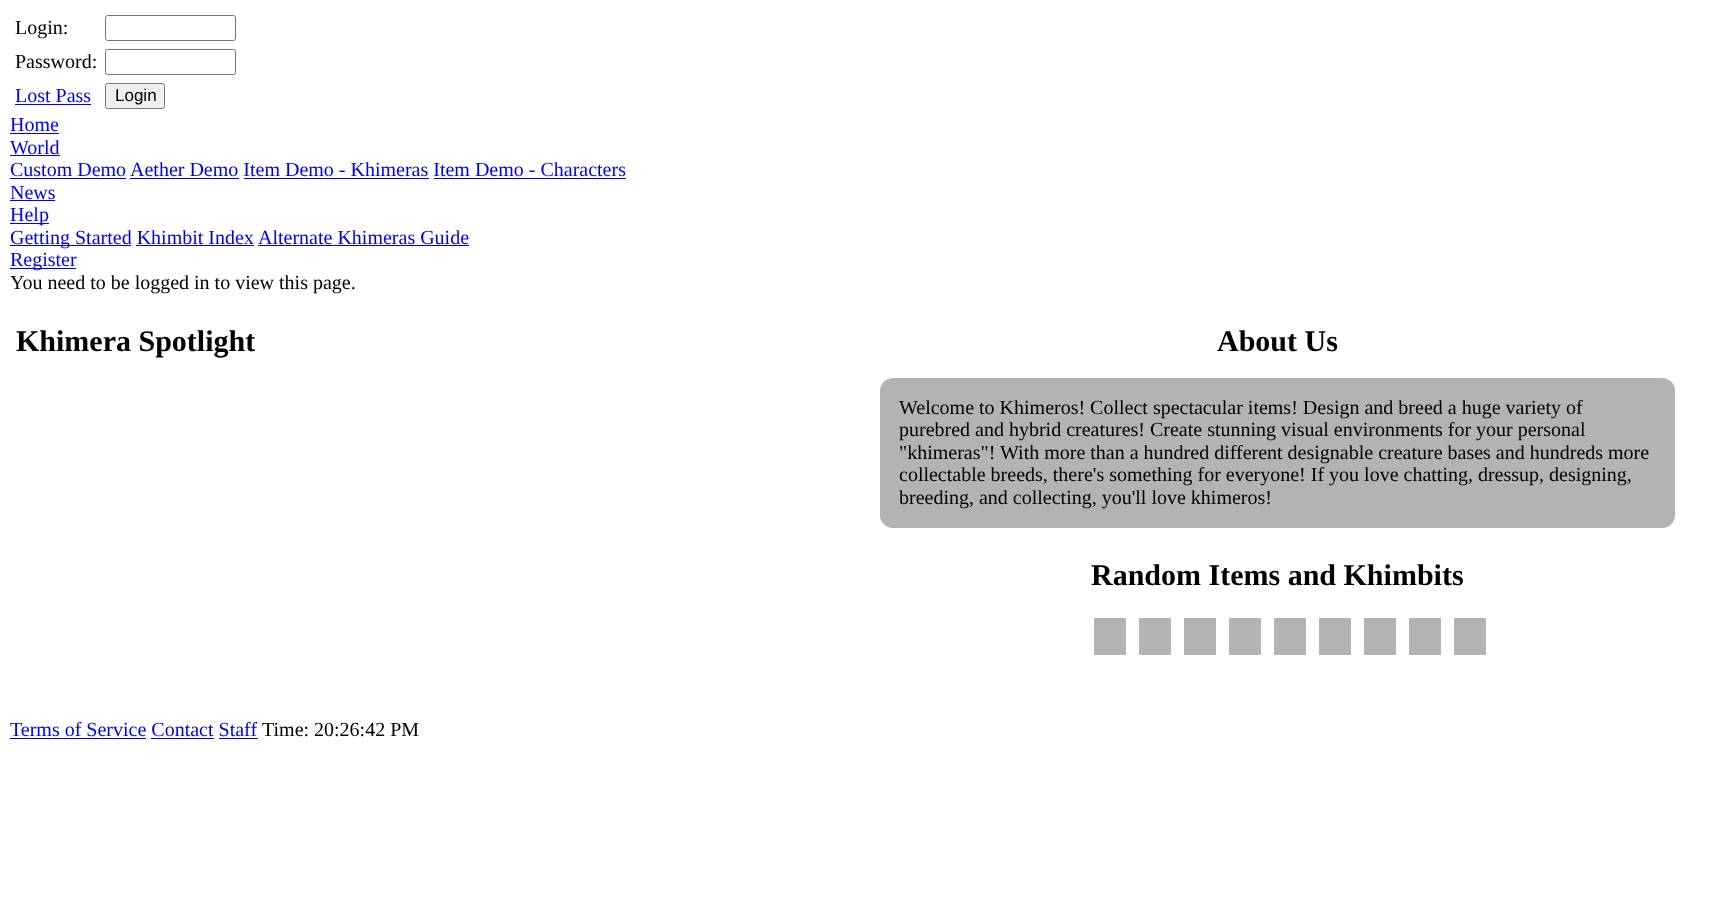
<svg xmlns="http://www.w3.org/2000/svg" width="1709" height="919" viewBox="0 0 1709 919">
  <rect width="100%" height="100%" fill="#ffffff"/>
  <text x="15" y="34" font-family="Liberation Serif" font-size="20" fill="#000000">Login:</text>
  <rect x="105.5" y="15.5" width="130" height="25" rx="2" fill="none" stroke="#767676"/>
  <text x="15" y="68" font-family="Liberation Serif" font-size="20" fill="#000000">Password:</text>
  <rect x="105.5" y="49.5" width="130" height="25" rx="2" fill="none" stroke="#767676"/>
  <text x="15" y="102" font-family="Liberation Serif" font-size="20" fill="#0000ee">Lost Pass</text>
  <rect x="15" y="104" width="76" height="1" fill="#0000ee"/>
  <rect x="105.5" y="83.5" width="59" height="25" rx="2" fill="#efefef" stroke="#767676"/>
  <text x="115" y="101" font-family="Liberation Sans" font-size="17" fill="#000000">Login</text>
  <text x="10" y="131" font-family="Liberation Serif" font-size="20" fill="#0000ee">Home</text>
  <rect x="10" y="133" width="49" height="1" fill="#0000ee"/>
  <text x="10" y="154" font-family="Liberation Serif" font-size="20" fill="#0000ee">World</text>
  <rect x="10" y="155" width="50" height="1" fill="#0000ee"/>
  <text x="10" y="176" font-family="Liberation Serif" font-size="20" fill="#0000ee">Custom Demo</text>
  <rect x="10" y="178" width="116" height="1" fill="#0000ee"/>
  <text x="130" y="176" font-family="Liberation Serif" font-size="20" fill="#0000ee">Aether Demo Item Demo - Khimeras Item Demo - Characters</text>
  <rect x="130" y="178" width="109" height="1" fill="#0000ee"/>
  <rect x="244" y="178" width="185" height="1" fill="#0000ee"/>
  <rect x="434" y="178" width="192" height="1" fill="#0000ee"/>
  <text x="10" y="199" font-family="Liberation Serif" font-size="20" fill="#0000ee">News</text>
  <rect x="10" y="200" width="45" height="1" fill="#0000ee"/>
  <rect x="10" y="223" width="39" height="1" fill="#0000ee"/>
  <text x="10" y="221" font-family="Liberation Serif" font-size="20" fill="#0000ee">Help</text>
  <rect x="10" y="245" width="121" height="1" fill="#0000ee"/>
  <text x="10" y="244" font-family="Liberation Serif" font-size="20" fill="#0000ee">Getting Started Khimbit Index</text>
  <text x="258" y="244" font-family="Liberation Serif" font-size="20" fill="#0000ee">Alternate Khimeras Guide</text>
  <rect x="258" y="245" width="211" height="1" fill="#0000ee"/>
  <rect x="136" y="245" width="118" height="1" fill="#0000ee"/>
  <rect x="10" y="268" width="66" height="1" fill="#0000ee"/>
  <text x="10" y="266" font-family="Liberation Serif" font-size="20" fill="#0000ee">Register</text>
  <text x="10" y="289" font-family="Liberation Serif" font-size="20" fill="#000000">You need to be logged in to view this page.</text>
  <text x="16" y="351" font-family="Liberation Serif" font-size="30" font-weight="bold" fill="#000000">Khimera Spotlight</text>
  <text x="1217" y="351" font-family="Liberation Serif" font-size="30" font-weight="bold" fill="#000000">About Us</text>
  <rect x="880" y="378" width="795" height="150" rx="13" fill="#b3b3b3"/>
  <text x="899" y="414" font-family="Liberation Serif" font-size="20" fill="#000000">Welcome to Khimeros! Collect spectacular items! Design and breed a huge variety of</text>
  <text x="899" y="436" font-family="Liberation Serif" font-size="20" fill="#000000">purebred and hybrid creatures! Create stunning visual environments for your personal</text>
  <text x="899" y="459" font-family="Liberation Serif" font-size="20" fill="#000000">"khimeras"!</text>
  <text x="1000" y="459" font-family="Liberation Serif" font-size="20" fill="#000000">With more than a hundred different designable creature bases and hundreds more</text>
  <text x="899" y="481" font-family="Liberation Serif" font-size="20" fill="#000000">collectable breeds, there's something for everyone! If you love chatting, dressup, designing,</text>
  <text x="899" y="504" font-family="Liberation Serif" font-size="20" fill="#000000">breeding, and collecting, you'll love khimeros!</text>
  <text x="1091" y="585" font-family="Liberation Serif" font-size="30" font-weight="bold" fill="#000000">Random Items and Khimbits</text>
  <rect x="1094" y="618" width="32" height="37" fill="#b3b3b3"/>
  <rect x="1139" y="618" width="32" height="37" fill="#b3b3b3"/>
  <rect x="1184" y="618" width="32" height="37" fill="#b3b3b3"/>
  <rect x="1229" y="618" width="32" height="37" fill="#b3b3b3"/>
  <rect x="1274" y="618" width="32" height="37" fill="#b3b3b3"/>
  <rect x="1319" y="618" width="32" height="37" fill="#b3b3b3"/>
  <rect x="1364" y="618" width="32" height="37" fill="#b3b3b3"/>
  <rect x="1409" y="618" width="32" height="37" fill="#b3b3b3"/>
  <rect x="1454" y="618" width="32" height="37" fill="#b3b3b3"/>
  <text x="10" y="736" font-family="Liberation Serif" font-size="20" fill="#0000ee">Terms of Service Contact Staff</text>
  <rect x="10" y="738" width="136" height="1" fill="#0000ee"/>
  <text x="262" y="736" font-family="Liberation Serif" font-size="20" fill="#000000">Time: 20:26:42 PM</text>
  <rect x="151" y="738" width="63" height="1" fill="#0000ee"/>
  <rect x="219" y="738" width="39" height="1" fill="#0000ee"/>
</svg>
